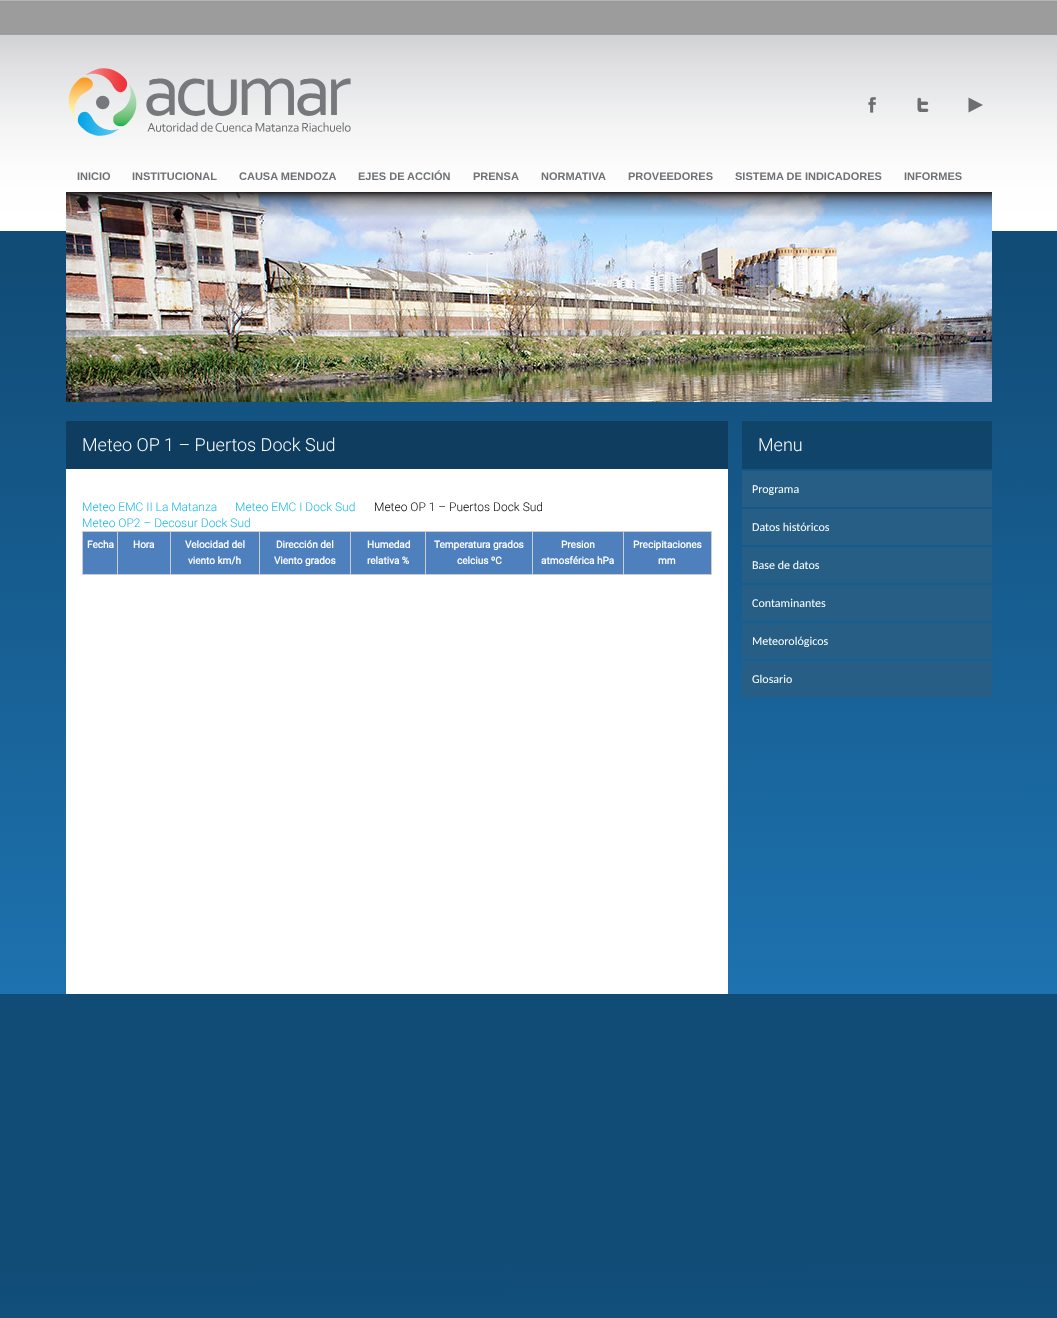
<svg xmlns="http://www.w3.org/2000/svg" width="1057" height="1318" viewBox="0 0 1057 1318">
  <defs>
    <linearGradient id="g1" gradientUnits="userSpaceOnUse" x1="528" y1="0" x2="529" y2="994"><stop offset="0" stop-color="#114c77"/><stop offset="0.27" stop-color="#114c77"/><stop offset="1" stop-color="#1d72af"/></linearGradient>
    <linearGradient id="g2" gradientUnits="userSpaceOnUse" x1="528" y1="0" x2="529" y2="994"><stop offset="0" stop-color="#0e3d5f"/><stop offset="0.27" stop-color="#0e3d5f"/><stop offset="1" stop-color="#175b8c"/></linearGradient>
    <linearGradient id="g3" gradientUnits="userSpaceOnUse" x1="528" y1="994" x2="529" y2="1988"><stop offset="0" stop-color="#114c77"/><stop offset="0.27" stop-color="#114c77"/><stop offset="1" stop-color="#1d72af"/></linearGradient>
  </defs>
  <rect width="100%" height="100%" fill="#ffffff"/>
  <rect x="0" y="231" width="1057" height="763" fill="url(#g1)"/>
  <rect x="742" y="421" width="250" height="48" fill="url(#g2)"/>
  <rect x="0" y="994" width="1057" height="324" fill="url(#g3)"/>
  <image x="0" y="0" width="1057" height="231" href="img1.png"/>
  <image x="68" y="68" width="283" height="68" href="img2.png"/>
  <image x="868" y="97" width="8" height="16" href="img3.png"/>
  <image x="917" y="97" width="12" height="15" href="img4.png"/>
  <path d="M968.5 97.5L983 105L968.5 112.5Z" fill="#6d6e70"/>
  <text x="77" y="180" font-family="Liberation Sans" font-size="11" font-weight="bold" fill="#6e7276">INICIO</text>
  <text x="132" y="180" font-family="Liberation Sans" font-size="11" font-weight="bold" fill="#6e7276">INSTITUCIONAL</text>
  <text x="239" y="180" font-family="Liberation Sans" font-size="11" font-weight="bold" fill="#6e7276">CAUSA MENDOZA</text>
  <text x="358" y="180" font-family="Liberation Sans" font-size="11" font-weight="bold" fill="#6e7276">EJES DE ACCIÓN</text>
  <text x="473" y="180" font-family="Liberation Sans" font-size="11" font-weight="bold" fill="#6e7276">PRENSA</text>
  <text x="541" y="180" font-family="Liberation Sans" font-size="11" font-weight="bold" fill="#6e7276">NORMATIVA</text>
  <text x="628" y="180" font-family="Liberation Sans" font-size="11" font-weight="bold" fill="#6e7276">PROVEEDORES</text>
  <text x="735" y="180" font-family="Liberation Sans" font-size="11" font-weight="bold" fill="#6e7276">SISTEMA DE INDICADORES</text>
  <text x="904" y="180" font-family="Liberation Sans" font-size="11" font-weight="bold" fill="#6e7276">INFORMES</text>
  <image x="66" y="192" width="926" height="210" href="img5.png"/>
  <image x="66" y="192" width="926" height="27" href="img6.png"/>
  <rect x="66" y="469" width="662" height="525" fill="#ffffff"/>
  <rect x="66" y="421" width="662" height="48" fill="#0e3d5f"/>
  <text x="82" y="451" font-family="Roboto" font-size="18" font-weight="300" fill="#ffffff">Meteo OP 1 – Puertos Dock Sud</text>
  <text x="82" y="511" font-family="Roboto" font-size="12" font-weight="300" fill="#19b6e8">Meteo EMC II La Matanza</text>
  <text x="235" y="511" font-family="Roboto" font-size="12" font-weight="300" fill="#19b6e8">Meteo EMC I Dock Sud</text>
  <text x="374" y="511" font-family="Roboto" font-size="12" font-weight="300" fill="#000000">Meteo OP 1 – Puertos Dock Sud</text>
  <text x="82" y="527" font-family="Roboto" font-size="12" font-weight="300" fill="#19b6e8">Meteo OP2 – Decosur Dock Sud</text>
  <rect x="83" y="532" width="628" height="42" fill="#4e80bd"/>
  <rect x="623" y="531" width="89" height="1" fill="#cccccc"/>
  <rect x="711" y="531" width="1" height="44" fill="#cccccc"/>
  <rect x="623" y="574" width="89" height="1" fill="#cccccc"/>
  <rect x="623" y="531" width="1" height="44" fill="#cccccc"/>
  <rect x="532" y="531" width="92" height="1" fill="#cccccc"/>
  <rect x="532" y="574" width="92" height="1" fill="#cccccc"/>
  <rect x="532" y="531" width="1" height="44" fill="#cccccc"/>
  <rect x="425" y="531" width="108" height="1" fill="#cccccc"/>
  <rect x="425" y="574" width="108" height="1" fill="#cccccc"/>
  <rect x="425" y="531" width="1" height="44" fill="#cccccc"/>
  <rect x="350" y="531" width="76" height="1" fill="#cccccc"/>
  <rect x="350" y="574" width="76" height="1" fill="#cccccc"/>
  <rect x="350" y="531" width="1" height="44" fill="#cccccc"/>
  <rect x="259" y="531" width="92" height="1" fill="#cccccc"/>
  <rect x="259" y="574" width="92" height="1" fill="#cccccc"/>
  <rect x="259" y="531" width="1" height="44" fill="#cccccc"/>
  <rect x="170" y="531" width="90" height="1" fill="#cccccc"/>
  <rect x="170" y="574" width="90" height="1" fill="#cccccc"/>
  <rect x="170" y="531" width="1" height="44" fill="#cccccc"/>
  <rect x="117" y="531" width="54" height="1" fill="#cccccc"/>
  <rect x="117" y="574" width="54" height="1" fill="#cccccc"/>
  <rect x="117" y="531" width="1" height="44" fill="#cccccc"/>
  <rect x="82" y="531" width="36" height="1" fill="#cccccc"/>
  <rect x="82" y="574" width="36" height="1" fill="#cccccc"/>
  <rect x="82" y="531" width="1" height="44" fill="#cccccc"/>
  <text x="87" y="548" font-family="Roboto" font-size="10" font-weight="bold" fill="#ffffff">Fecha</text>
  <text x="133" y="548" font-family="Roboto" font-size="10" font-weight="bold" fill="#ffffff">Hora</text>
  <text x="185" y="548" font-family="Roboto" font-size="10" font-weight="bold" fill="#ffffff">Velocidad del</text>
  <text x="188" y="564" font-family="Roboto" font-size="10" font-weight="bold" fill="#ffffff">viento km/h</text>
  <text x="276" y="548" font-family="Roboto" font-size="10" font-weight="bold" fill="#ffffff">Dirección del</text>
  <text x="274" y="564" font-family="Roboto" font-size="10" font-weight="bold" fill="#ffffff">Viento grados</text>
  <text x="367" y="548" font-family="Roboto" font-size="10" font-weight="bold" fill="#ffffff">Humedad</text>
  <text x="367" y="564" font-family="Roboto" font-size="10" font-weight="bold" fill="#ffffff">relativa %</text>
  <text x="434" y="548" font-family="Roboto" font-size="10" font-weight="bold" fill="#ffffff">Temperatura grados</text>
  <text x="457" y="564" font-family="Roboto" font-size="10" font-weight="bold" fill="#ffffff">celcius ºC</text>
  <text x="561" y="548" font-family="Roboto" font-size="10" font-weight="bold" fill="#ffffff">Presion</text>
  <text x="541" y="564" font-family="Roboto" font-size="10" font-weight="bold" fill="#ffffff">atmosférica hPa</text>
  <text x="633" y="548" font-family="Roboto" font-size="10" font-weight="bold" fill="#ffffff">Precipitaciones</text>
  <text x="658" y="564" font-family="Roboto" font-size="10" font-weight="bold" fill="#ffffff">mm</text>
  <text x="758" y="451" font-family="Roboto" font-size="18" font-weight="300" fill="#ffffff">Menu</text>
  <rect x="742" y="471" width="250" height="36" fill="#265e86"/>
  <text x="752" y="493" font-family="Carlito" font-size="12" fill="#ffffff">Programa</text>
  <rect x="742" y="509" width="250" height="36" fill="#265e86"/>
  <text x="752" y="531" font-family="Carlito" font-size="12" fill="#ffffff">Datos históricos</text>
  <rect x="742" y="547" width="250" height="36" fill="#265e86"/>
  <text x="752" y="569" font-family="Carlito" font-size="12" fill="#ffffff">Base de datos</text>
  <rect x="742" y="585" width="250" height="36" fill="#265e86"/>
  <text x="752" y="607" font-family="Carlito" font-size="12" fill="#ffffff">Contaminantes</text>
  <rect x="742" y="623" width="250" height="36" fill="#265e86"/>
  <text x="752" y="645" font-family="Carlito" font-size="12" fill="#ffffff">Meteorológicos</text>
  <rect x="742" y="661" width="250" height="36" fill="#265e86"/>
  <text x="752" y="683" font-family="Carlito" font-size="12" fill="#ffffff">Glosario</text>
</svg>
